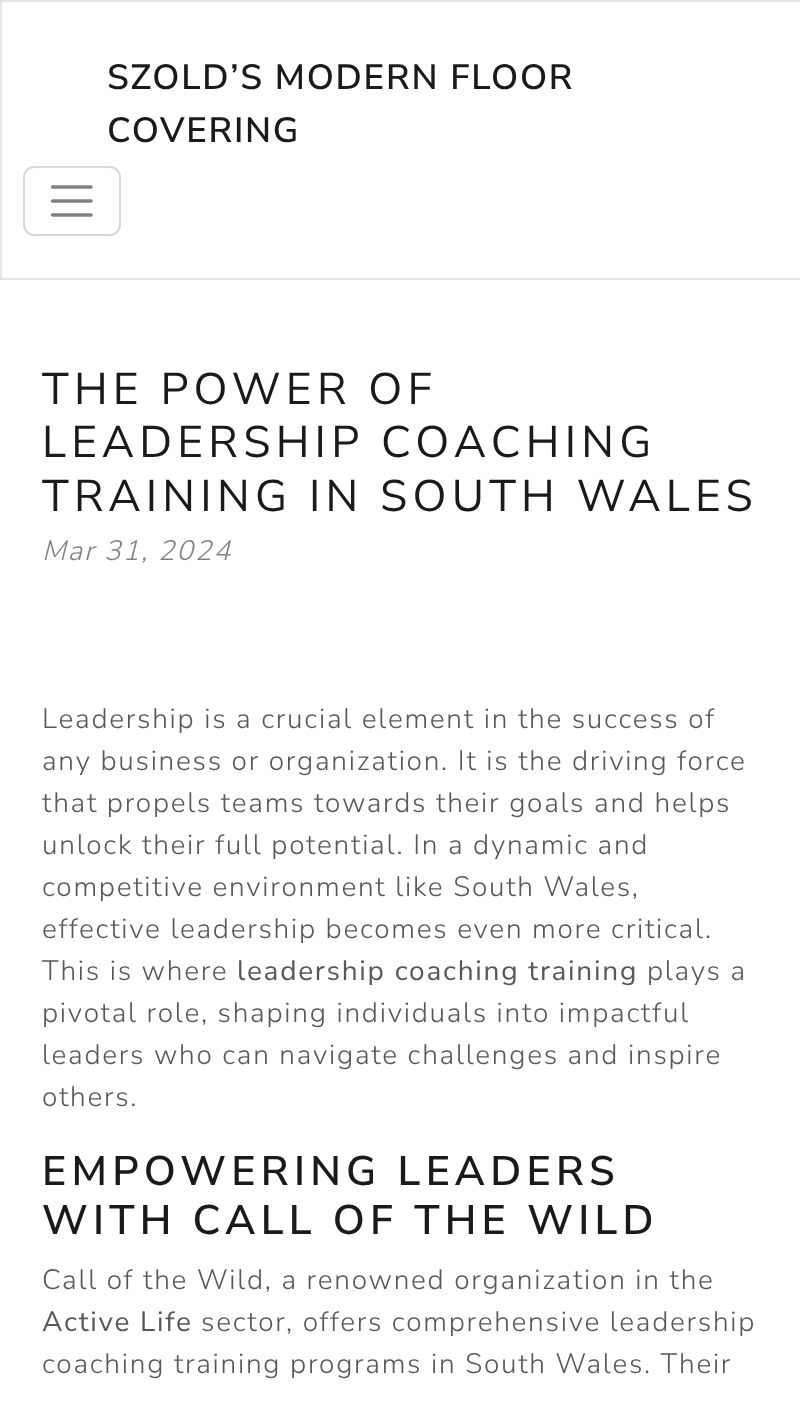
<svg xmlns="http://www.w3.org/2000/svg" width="800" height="1409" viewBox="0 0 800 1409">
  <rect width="100%" height="100%" fill="#ffffff"/>
  <rect x="1" y="1" width="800" height="278" fill="none" stroke="#e6e6e6" stroke-width="2"/>
  <text x="107" y="89" font-family="Nunito Sans" font-size="35" font-weight="600" letter-spacing="1.75" fill="#1a1a1a">SZOLD’S MODERN FLOOR</text>
  <text x="107" y="142" font-family="Nunito Sans" font-size="35" font-weight="600" letter-spacing="1.75" fill="#1a1a1a">COVERING</text>
  <rect x="24" y="167" width="96" height="68" rx="10" fill="none" stroke="#d9d9d9" stroke-width="2"/>
  <path d="M52.5 187H91M52.5 201H91M52.5 215H91" fill="none" stroke="#808385" stroke-width="3.5" stroke-linecap="round"/>
  <text x="42" y="404" font-family="Nunito Sans" font-size="44.25" letter-spacing="5.25" fill="#1a1a1a">THE POWER OF</text>
  <text x="42" y="457" font-family="Nunito Sans" font-size="44.25" letter-spacing="5.25" fill="#1a1a1a">LEADERSHIP COACHING</text>
  <text x="42" y="511" font-family="Nunito Sans" font-size="44.25" letter-spacing="5.25" fill="#1a1a1a">TRAINING IN SOUTH WALES</text>
  <text x="42" y="560" font-family="Nunito Sans" font-size="28" font-weight="300" font-style="italic" letter-spacing="1.75" fill="#808385">Mar 31, 2024</text>
  <text x="42" y="728" font-family="Nunito Sans" font-size="28" font-weight="300" letter-spacing="1.75" fill="#55595c">Leadership is a crucial element in the success of</text>
  <text x="42" y="770" font-family="Nunito Sans" font-size="28" font-weight="300" letter-spacing="1.75" fill="#55595c">any business or organization. It is the driving force</text>
  <text x="42" y="812" font-family="Nunito Sans" font-size="28" font-weight="300" letter-spacing="1.75" fill="#55595c">that propels teams towards their goals and helps</text>
  <text x="42" y="854" font-family="Nunito Sans" font-size="28" font-weight="300" letter-spacing="1.75" fill="#55595c">unlock their full potential. In a dynamic and</text>
  <text x="42" y="896" font-family="Nunito Sans" font-size="28" font-weight="300" letter-spacing="1.75" fill="#55595c">competitive environment like South Wales,</text>
  <text x="42" y="938" font-family="Nunito Sans" font-size="28" font-weight="300" letter-spacing="1.75" fill="#55595c">effective leadership becomes even more critical.</text>
  <text x="42" y="980" font-family="Nunito Sans" font-size="28" font-weight="300" letter-spacing="1.75" fill="#55595c">This is where</text>
  <text x="237" y="980" font-family="Nunito Sans" font-size="28" letter-spacing="1.75" fill="#55595c">leadership coaching training</text>
  <text x="647" y="980" font-family="Nunito Sans" font-size="28" font-weight="300" letter-spacing="1.75" fill="#55595c">plays a</text>
  <text x="42" y="1022" font-family="Nunito Sans" font-size="28" font-weight="300" letter-spacing="1.75" fill="#55595c">pivotal role, shaping individuals into impactful</text>
  <text x="42" y="1064" font-family="Nunito Sans" font-size="28" font-weight="300" letter-spacing="1.75" fill="#55595c">leaders who can navigate challenges and inspire</text>
  <text x="42" y="1106" font-family="Nunito Sans" font-size="28" font-weight="300" letter-spacing="1.75" fill="#55595c">others.</text>
  <text x="42" y="1185" font-family="Nunito Sans" font-size="41.25" font-weight="600" letter-spacing="5.25" fill="#1a1a1a">EMPOWERING LEADERS</text>
  <text x="42" y="1234" font-family="Nunito Sans" font-size="41.25" font-weight="600" letter-spacing="5.25" fill="#1a1a1a">WITH CALL OF THE WILD</text>
  <text x="42" y="1289" font-family="Nunito Sans" font-size="28" font-weight="300" letter-spacing="1.75" fill="#55595c">Call of the Wild, a renowned organization in the</text>
  <text x="42" y="1331" font-family="Nunito Sans" font-size="28" letter-spacing="1.75" fill="#55595c">Active Life</text>
  <text x="201" y="1331" font-family="Nunito Sans" font-size="28" font-weight="300" letter-spacing="1.75" fill="#55595c">sector, offers comprehensive leadership</text>
  <text x="42" y="1373" font-family="Nunito Sans" font-size="28" font-weight="300" letter-spacing="1.75" fill="#55595c">coaching training programs in South Wales. Their</text>
</svg>
